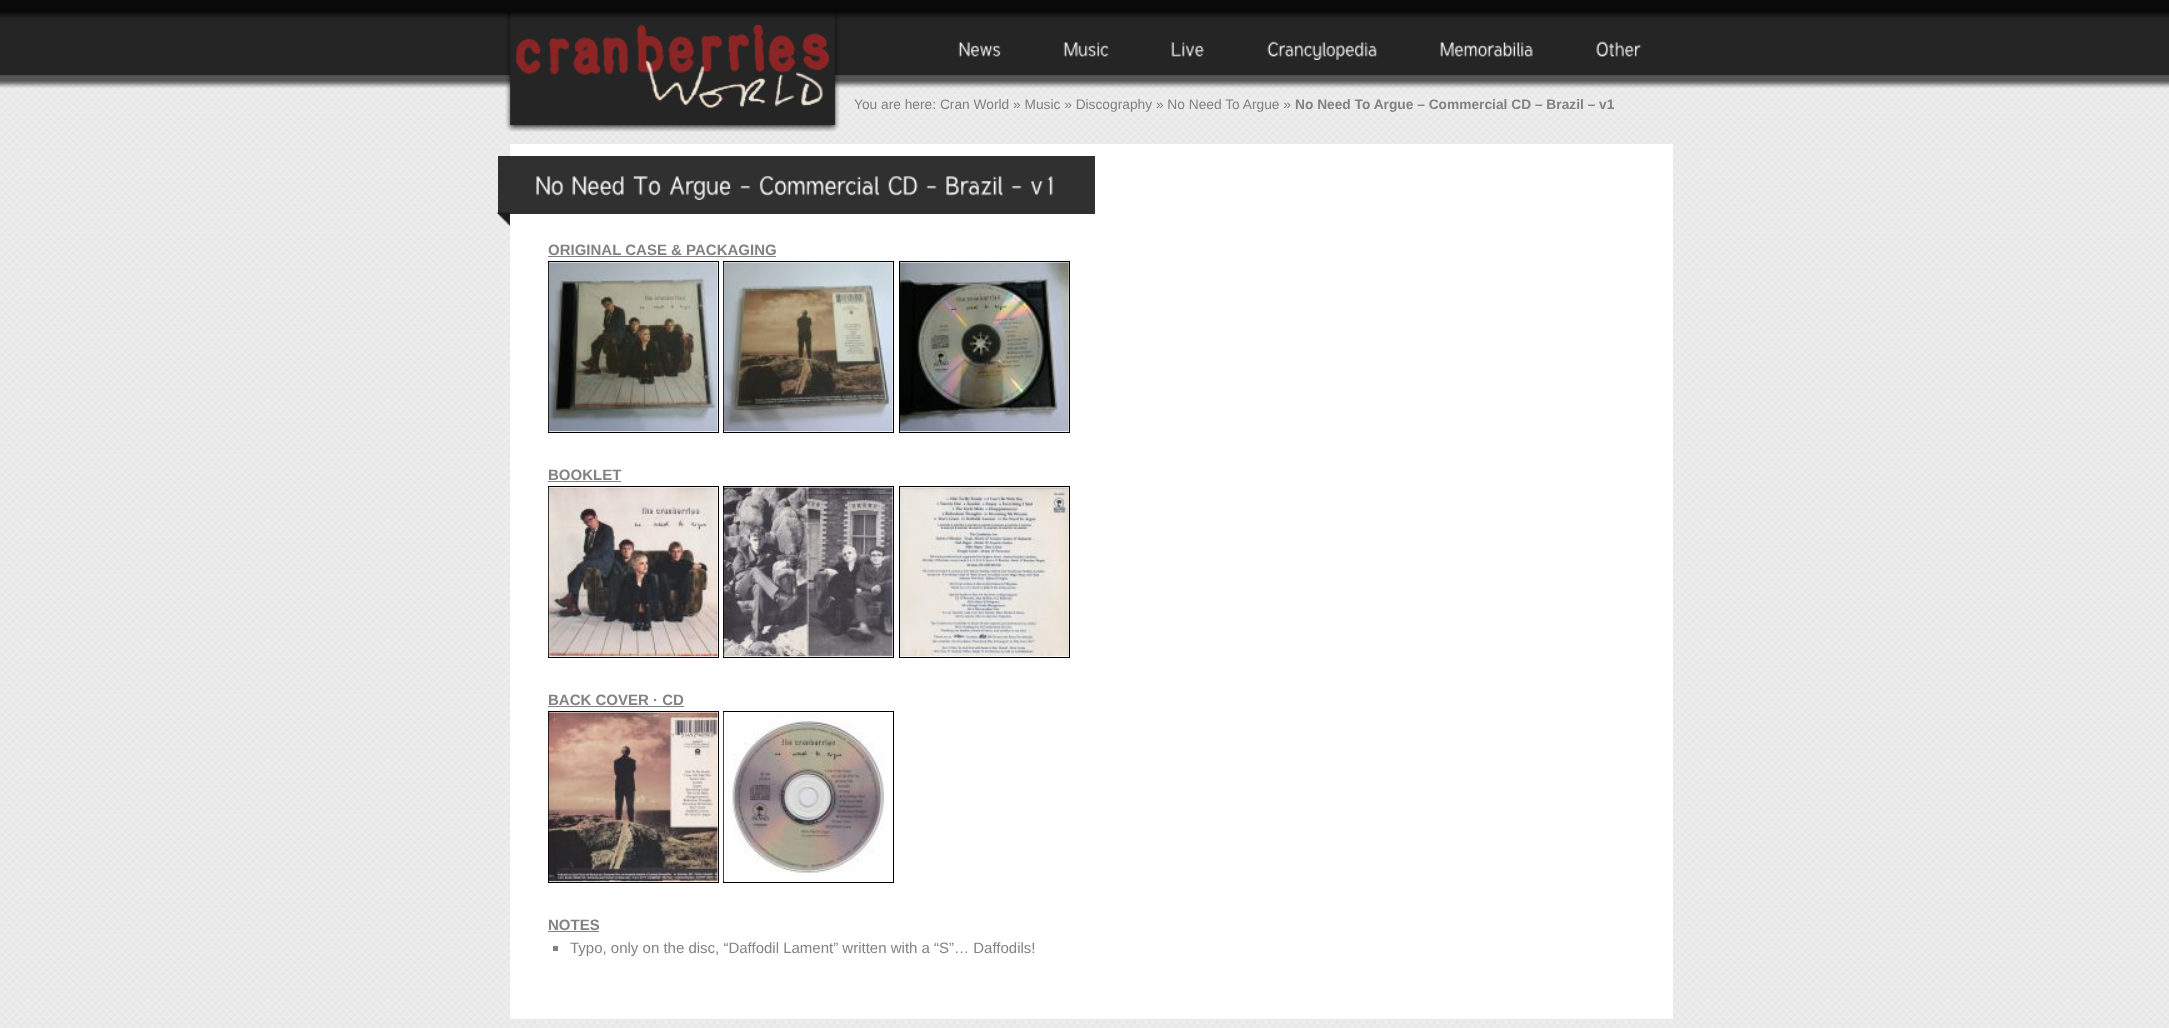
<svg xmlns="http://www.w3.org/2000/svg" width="2169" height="1028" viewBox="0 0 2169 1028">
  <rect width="100%" height="100%" fill="#ffffff"/>
  <image x="0" y="81" width="2169" height="947" href="img1.png"/>
  <image x="0" y="0" width="2169" height="88" href="img2.png"/>
  <image x="505" y="12" width="335" height="120" href="img3.png"/>
  <image x="958" y="42" width="43" height="15" href="img4.png"/>
  <image x="1063" y="42" width="46" height="15" href="img5.png"/>
  <image x="1171" y="42" width="33" height="15" href="img6.png"/>
  <image x="1267" y="41" width="110" height="19" href="img7.png"/>
  <image x="1440" y="42" width="93" height="15" href="img8.png"/>
  <image x="1596" y="41" width="46" height="16" href="img9.png"/>
  <text x="854" y="109" font-family="Liberation Sans" font-size="13.75" fill="#828282">You are here: Cran World » Music » Discography » No Need To Argue »</text>
  <text x="1295" y="109" font-family="Liberation Sans" font-size="13.75" font-weight="bold" fill="#828282">No Need To Argue – Commercial CD – Brazil – v1</text>
  <rect x="510" y="144" width="1163" height="875" fill="#ffffff"/>
  <rect x="498" y="156" width="597" height="58" fill="#303030"/>
  <image x="536" y="176" width="28" height="20" href="img10.png"/>
  <image x="572" y="176" width="52" height="20" href="img11.png"/>
  <image x="633" y="176" width="28" height="20" href="img12.png"/>
  <image x="669" y="176" width="62" height="24" href="img13.png"/>
  <image x="740" y="185" width="11" height="4" href="img14.png"/>
  <image x="759" y="176" width="121" height="20" href="img15.png"/>
  <image x="888" y="176" width="30" height="20" href="img16.png"/>
  <image x="926" y="185" width="11" height="4" href="img17.png"/>
  <image x="946" y="176" width="57" height="20" href="img18.png"/>
  <image x="1011" y="185" width="11" height="4" href="img17.png"/>
  <image x="1031" y="176" width="22" height="20" href="img19.png"/>
  <image x="497" y="212" width="13" height="15" href="img20.png"/>
  <text x="548" y="255" font-family="Liberation Sans" font-size="15" font-weight="bold" fill="#828282">ORIGINAL CASE &amp; PACKAGING</text>
  <rect x="548" y="256" width="228" height="1" fill="#828282"/>
  <rect x="548.5" y="261.5" width="170" height="171" fill="none" stroke="#000000"/>
  <rect x="723.5" y="261.5" width="170" height="171" fill="none" stroke="#000000"/>
  <rect x="899.5" y="261.5" width="170" height="171" fill="none" stroke="#000000"/>
  <image x="548" y="262" width="170" height="170" href="img21.png"/>
  <image x="723" y="262" width="170" height="170" href="img22.png"/>
  <image x="900" y="262" width="169" height="170" href="img23.png"/>
  <text x="548" y="480" font-family="Liberation Sans" font-size="15" font-weight="bold" fill="#828282">BOOKLET</text>
  <rect x="548" y="481" width="73" height="1" fill="#828282"/>
  <rect x="548.5" y="486.5" width="170" height="171" fill="none" stroke="#000000"/>
  <rect x="723.5" y="486.5" width="170" height="171" fill="none" stroke="#000000"/>
  <rect x="899.5" y="486.5" width="170" height="171" fill="none" stroke="#000000"/>
  <image x="548" y="487" width="170" height="170" href="img24.png"/>
  <image x="723" y="487" width="170" height="170" href="img25.png"/>
  <image x="900" y="487" width="169" height="170" href="img26.png"/>
  <text x="548" y="705" font-family="Liberation Sans" font-size="15" font-weight="bold" fill="#828282">BACK COVER · CD</text>
  <rect x="548" y="706" width="136" height="1" fill="#828282"/>
  <rect x="548.5" y="711.5" width="170" height="171" fill="none" stroke="#000000"/>
  <rect x="723.5" y="711.5" width="170" height="171" fill="none" stroke="#000000"/>
  <image x="548" y="712" width="170" height="170" href="img27.png"/>
  <image x="723" y="712" width="161" height="170" href="img28.png"/>
  <text x="548" y="930" font-family="Liberation Sans" font-size="15" font-weight="bold" fill="#828282">NOTES</text>
  <rect x="548" y="931" width="51" height="1" fill="#828282"/>
  <rect x="553" y="946" width="5" height="5" fill="#828282"/>
  <text x="570" y="953" font-family="Liberation Sans" font-size="15" fill="#828282">Typo, only on the disc, “Daffodil Lament” written with a “S”… Daffodils!</text>
</svg>
